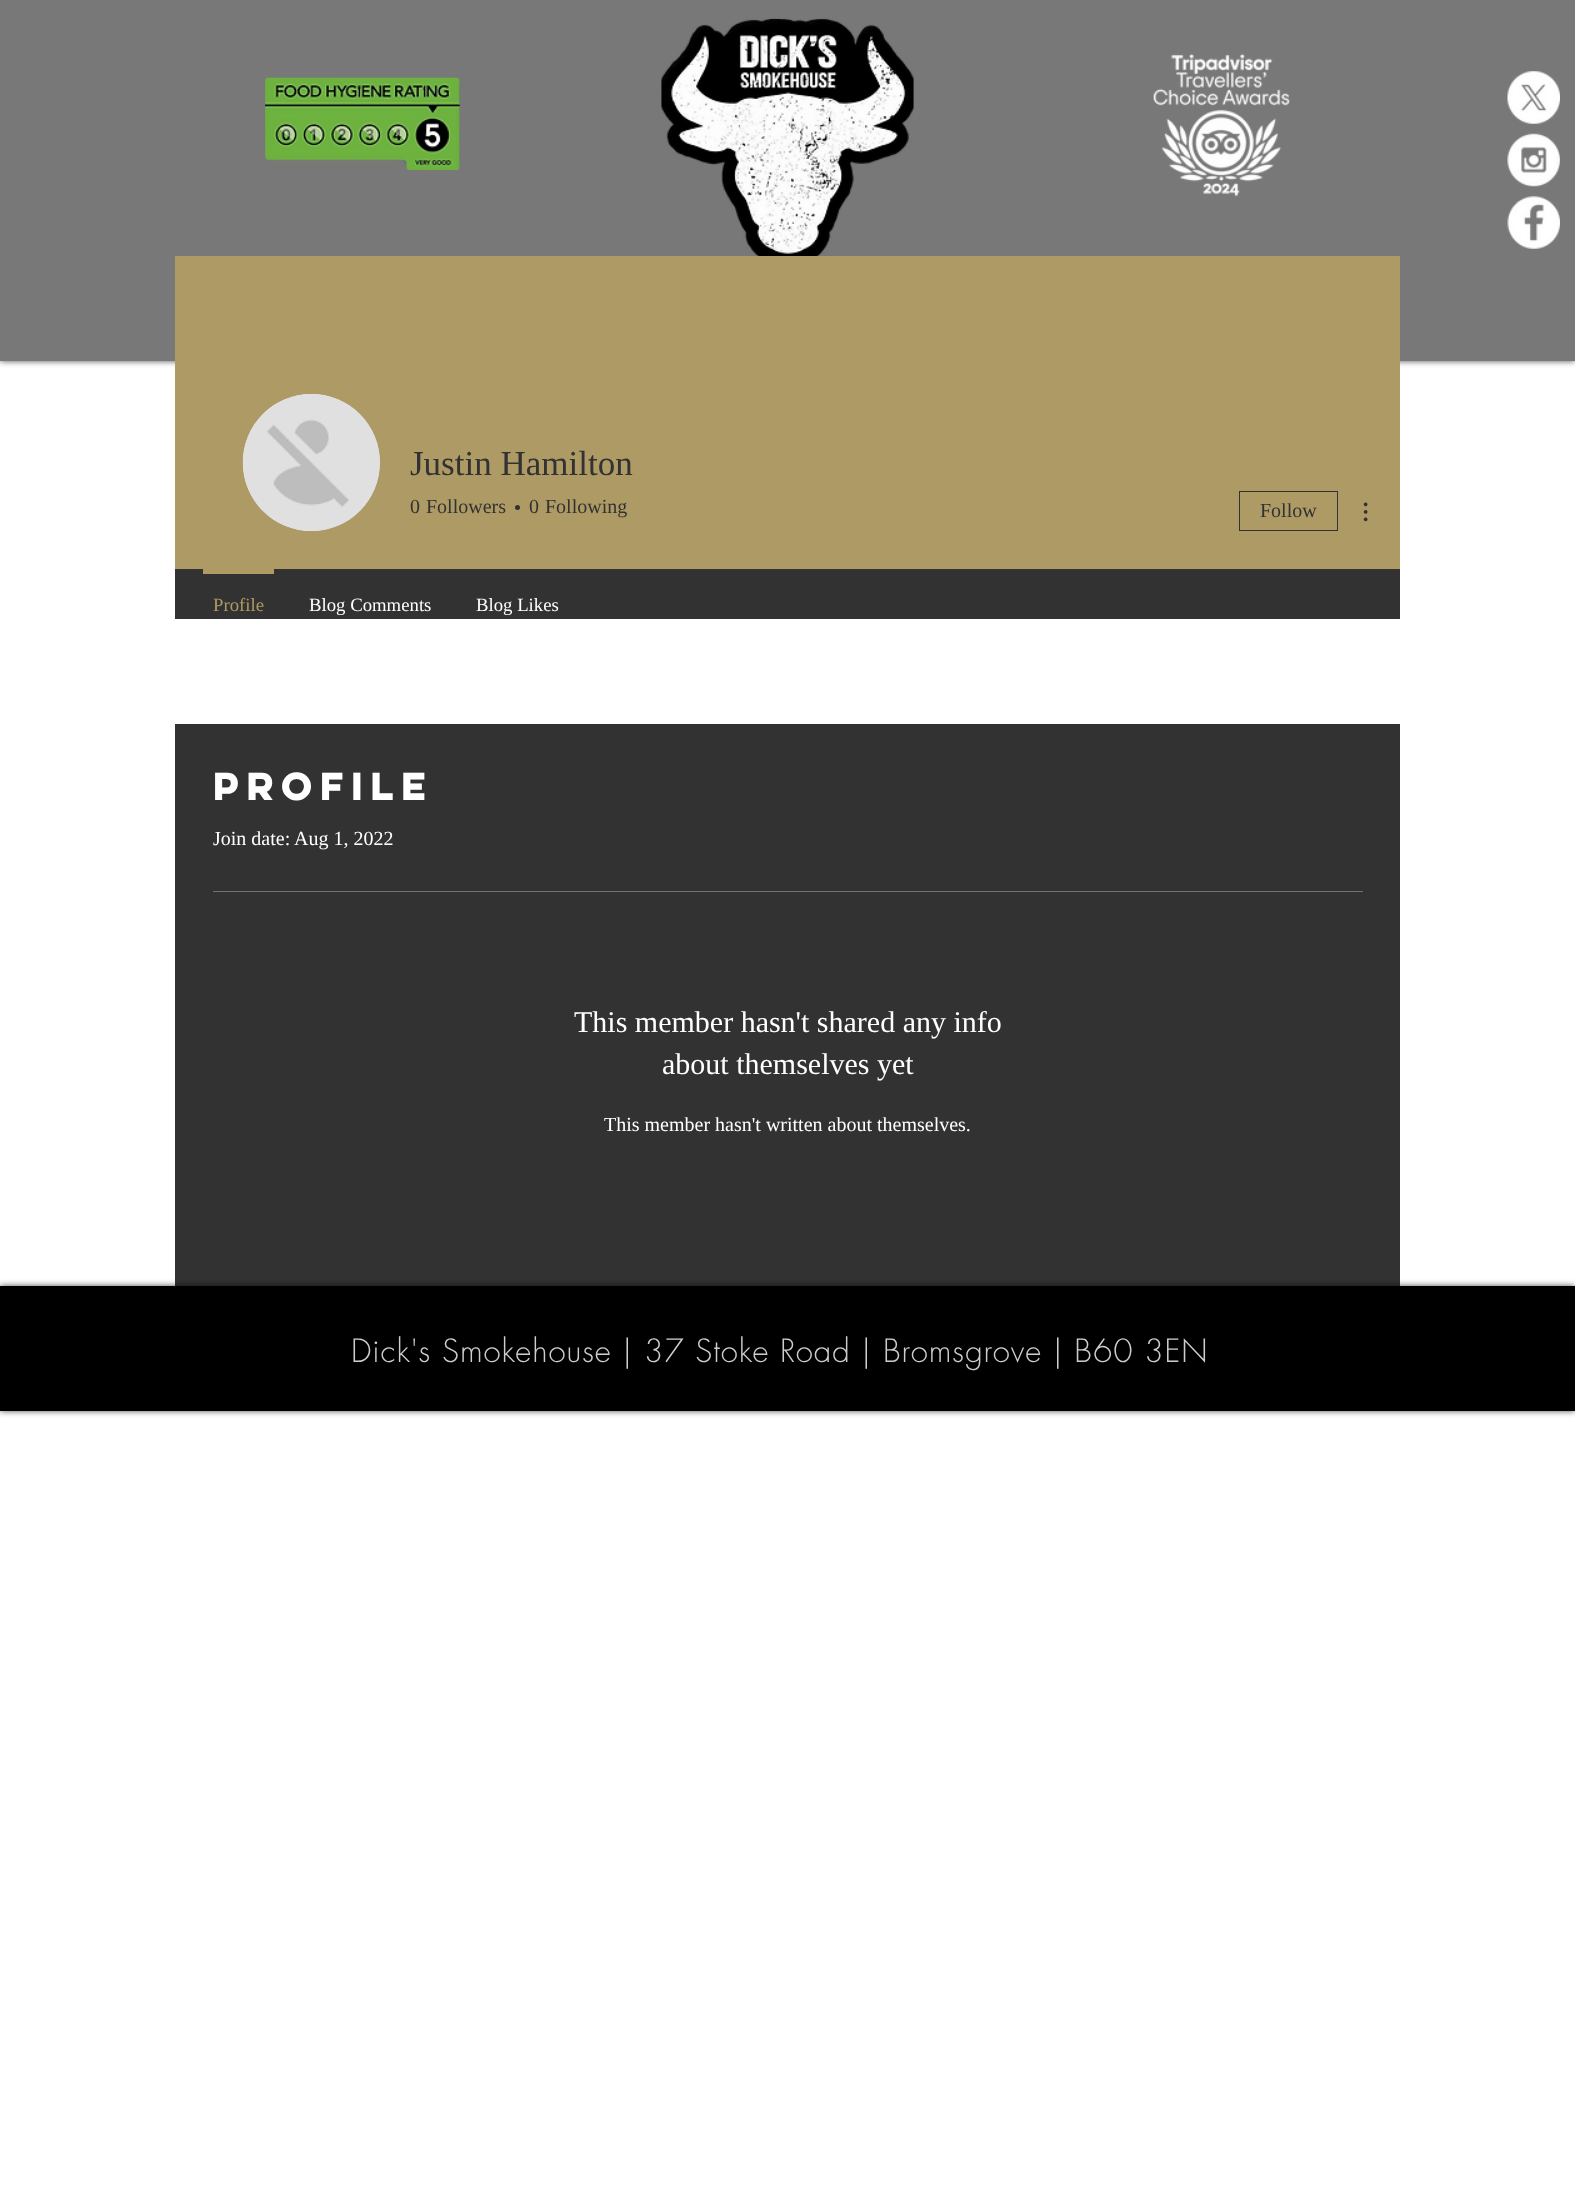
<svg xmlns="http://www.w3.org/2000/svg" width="1575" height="2200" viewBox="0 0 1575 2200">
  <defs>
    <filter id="blur1" x="-50%" y="-200%" width="200%" height="500%"><feGaussianBlur stdDeviation="3"/></filter>
  </defs>
  <rect width="100%" height="100%" fill="#ffffff"/>
  <rect x="0" y="0" width="1575" height="361" fill="#000000" fill-opacity="0.7" filter="url(#blur1)"/>
  <rect x="0" y="0" width="1575" height="361" fill="#787878"/>
  <image x="265" y="77" width="195" height="93" href="img1.png"/>
  <image x="661" y="18" width="253" height="238" href="img2.png"/>
  <image x="1153" y="53" width="137" height="144" href="img3.png"/>
  <image x="1507" y="71" width="53" height="53" href="img4.png"/>
  <image x="1507" y="133" width="53" height="54" href="img5.png"/>
  <image x="1507" y="196" width="53" height="53" href="img6.png"/>
  <rect x="175" y="256" width="1225" height="313" fill="#ae9a64"/>
  <circle cx="311.5" cy="462.5" r="68.5" fill="#d8d8d8"/>
  <image x="242" y="394" width="138" height="137" href="img7.png"/>
  <text x="410" y="475" font-family="Liberation Serif" font-size="35" fill="#323232">Justin Hamilton</text>
  <text x="410" y="513" font-family="Liberation Serif" font-size="20" fill="#323232">0</text>
  <text x="426" y="513" font-family="Liberation Serif" font-size="20" fill="#323232">Followers</text>
  <circle cx="517.5" cy="507.5" r="2.5" fill="#323232"/>
  <text x="529" y="513" font-family="Liberation Serif" font-size="20" fill="#323232">0</text>
  <text x="545" y="513" font-family="Liberation Serif" font-size="20" fill="#323232">Following</text>
  <rect x="1239.5" y="491.5" width="98" height="39" fill="none" stroke="#323232"/>
  <text x="1260" y="517" font-family="Liberation Serif" font-size="20" fill="#323232">Follow</text>
  <image x="1363" y="502" width="5" height="20" href="img8.png"/>
  <rect x="175" y="569" width="1225" height="50" fill="#323232"/>
  <rect x="203" y="569" width="71" height="5" fill="#ae9a64"/>
  <text x="213" y="611" font-family="Liberation Serif" font-size="18.75" fill="#ae9a64">Profile</text>
  <text x="309" y="611" font-family="Liberation Serif" font-size="18.75" fill="#ffffff">Blog Comments</text>
  <text x="476" y="611" font-family="Liberation Serif" font-size="18.75" fill="#ffffff">Blog Likes</text>
  <rect x="175" y="724" width="1225" height="562" fill="#323232"/>
  <text x="213" y="800" font-family="'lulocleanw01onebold'" font-size="35" font-weight="bold" fill="#ffffff">Profile</text>
  <text x="213" y="845" font-family="Liberation Serif" font-size="20" fill="#ffffff">Join date: Aug 1, 2022</text>
  <rect x="213" y="891" width="1150" height="1" fill="#707070"/>
  <text x="574" y="1032" font-family="Liberation Serif" font-size="30" fill="#ffffff">This member hasn't shared any info</text>
  <text x="662" y="1074" font-family="Liberation Serif" font-size="30" fill="#ffffff">about themselves yet</text>
  <text x="604" y="1131" font-family="Liberation Serif" font-size="20" fill="#ffffff">This member hasn't written about themselves.</text>
  <rect x="0" y="1286" width="1575" height="125" fill="#000000" fill-opacity="0.7" filter="url(#blur1)"/>
  <rect x="0" y="1286" width="1575" height="125" fill="#000000"/>
  <text x="351" y="1362" font-family="futura" font-size="31.25" font-weight="300" letter-spacing="0.95" fill="#cdcdd1">Dick's Smokehouse | 37 Stoke Road | Bromsgrove | B60 3EN</text>
</svg>
